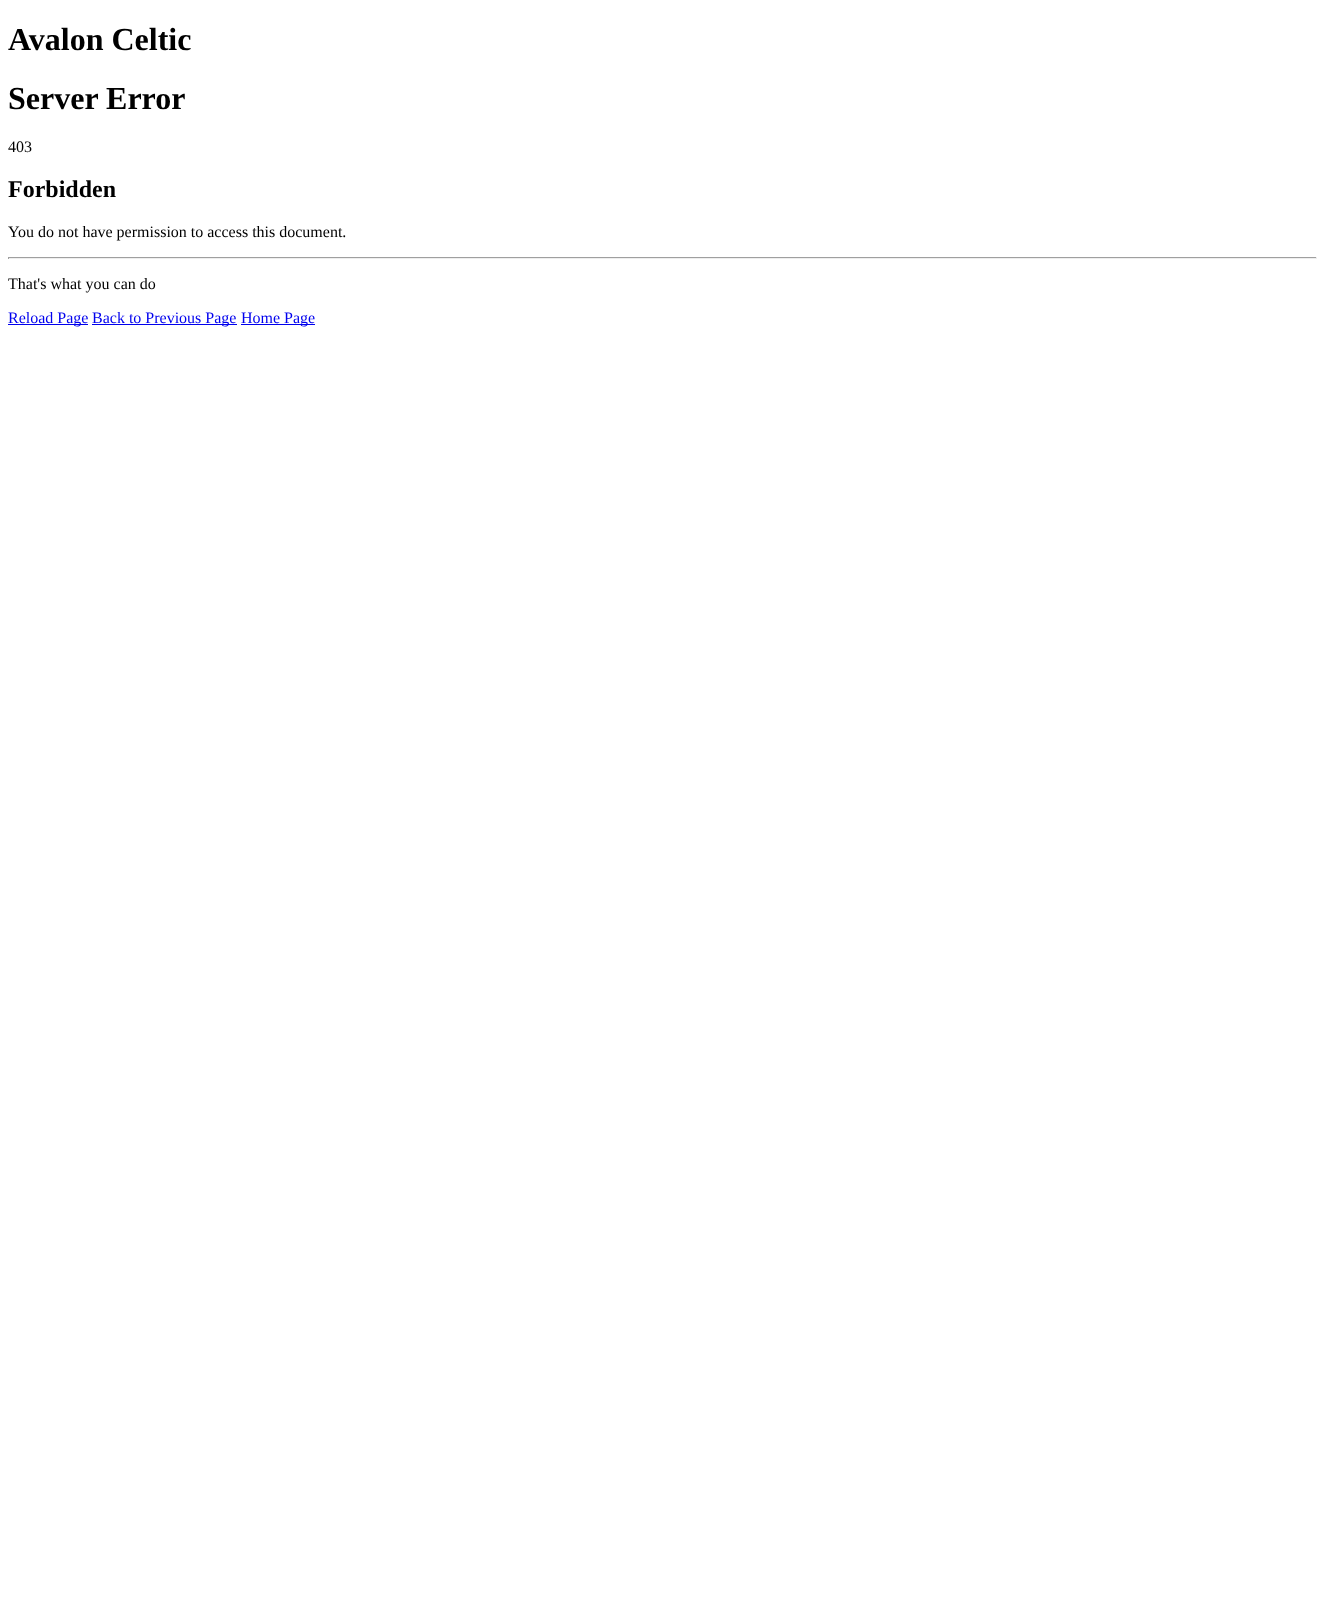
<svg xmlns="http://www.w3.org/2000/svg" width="1325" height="1612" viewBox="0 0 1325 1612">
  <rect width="100%" height="100%" fill="#ffffff"/>
  <text x="8" y="50" font-family="Liberation Serif" font-size="32" font-weight="bold" fill="#000000">Avalon Celtic</text>
  <text x="8" y="109" font-family="Liberation Serif" font-size="32" font-weight="bold" fill="#000000">Server Error</text>
  <text x="8" y="152" font-family="Liberation Serif" font-size="16" fill="#000000">403</text>
  <text x="8" y="197" font-family="Liberation Serif" font-size="24" font-weight="bold" fill="#000000">Forbidden</text>
  <text x="8" y="237" font-family="Liberation Serif" font-size="16" fill="#000000">You do not have permission to access this document.</text>
  <rect x="8" y="257" width="1309" height="1" fill="#9f9f9f"/>
  <rect x="1316" y="257" width="1" height="2" fill="#eeeeee"/>
  <rect x="8" y="258" width="1309" height="1" fill="#eeeeee"/>
  <rect x="8" y="257" width="1" height="2" fill="#9f9f9f"/>
  <text x="8" y="289" font-family="Liberation Serif" font-size="16" fill="#000000">That's what you can do</text>
  <rect x="8" y="324" width="80" height="1" fill="#0000ee"/>
  <text x="8" y="323" font-family="Liberation Serif" font-size="16" fill="#0000ee">Reload Page</text>
  <rect x="92" y="324" width="145" height="1" fill="#0000ee"/>
  <text x="92" y="323" font-family="Liberation Serif" font-size="16" fill="#0000ee">Back to Previous Page</text>
  <rect x="241" y="324" width="74" height="1" fill="#0000ee"/>
  <text x="241" y="323" font-family="Liberation Serif" font-size="16" fill="#0000ee">Home Page</text>
</svg>
